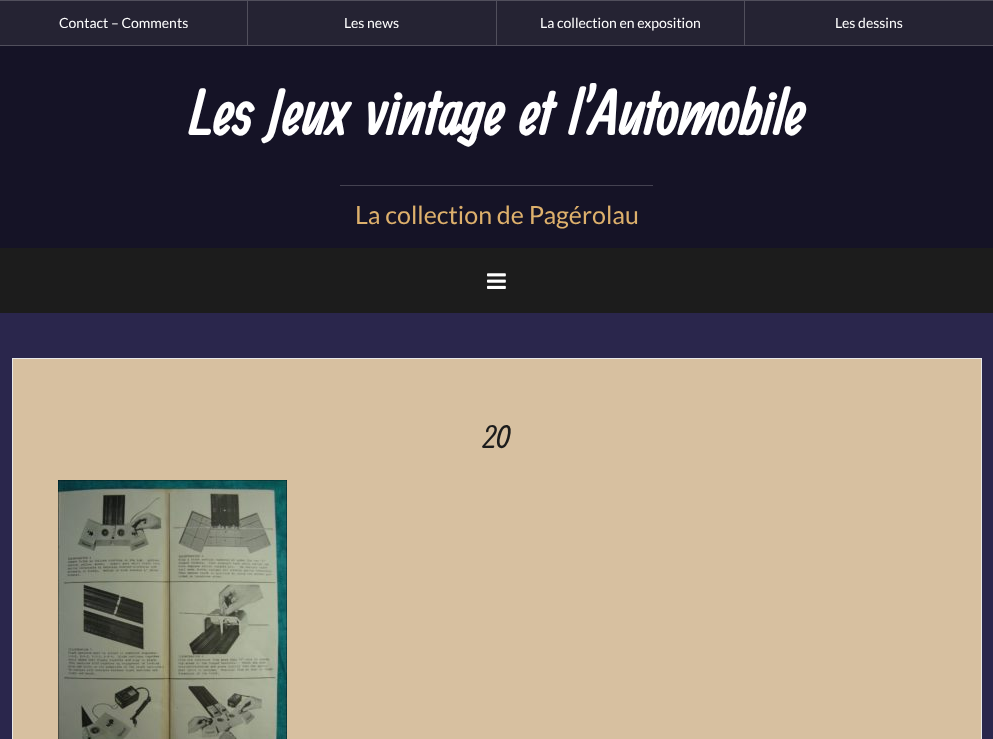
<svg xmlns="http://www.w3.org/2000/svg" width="993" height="739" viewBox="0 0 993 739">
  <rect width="100%" height="100%" fill="#2a264c"/>
  <rect x="0" y="1" width="993" height="44" fill="#252333"/>
  <rect x="0" y="0" width="993" height="1" fill="#514f5c"/>
  <rect x="0" y="45" width="993" height="1" fill="#514f5c"/>
  <rect x="247" y="1" width="1" height="44" fill="#514f5c"/>
  <text x="59" y="28" font-family="Lato" font-size="14" fill="#ffffff">Contact – Comments</text>
  <rect x="496" y="1" width="1" height="44" fill="#514f5c"/>
  <text x="344" y="28" font-family="Lato" font-size="14" fill="#ffffff">Les news</text>
  <rect x="744" y="1" width="1" height="44" fill="#514f5c"/>
  <text x="540" y="28" font-family="Lato" font-size="14" fill="#ffffff">La collection en exposition</text>
  <text x="835" y="28" font-family="Lato" font-size="14" fill="#ffffff">Les dessins</text>
  <rect x="0" y="46" width="993" height="202" fill="#151326"/>
  <text x="189" y="135" font-family="Ranga" font-size="67" font-weight="bold" fill="#ffffff">Les Jeux vintage et l'Automobile</text>
  <rect x="340" y="185" width="313" height="1" fill="#444251"/>
  <text x="355" y="224" font-family="Lato" font-size="25" fill="#ddb06c">La collection de Pagérolau</text>
  <rect x="0" y="248" width="993" height="65" fill="#1c1c1c"/>
  <image x="487" y="273" width="19" height="16" href="img1.png"/>
  <rect x="12.5" y="358.5" width="969" height="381" fill="#d7c0a0" stroke="#e8e8e8"/>
  <text x="483" y="448" font-family="Ranga" font-size="36" fill="#1c1c1c">20</text>
  <image x="58" y="480" width="229" height="259" href="img2.png"/>
</svg>
